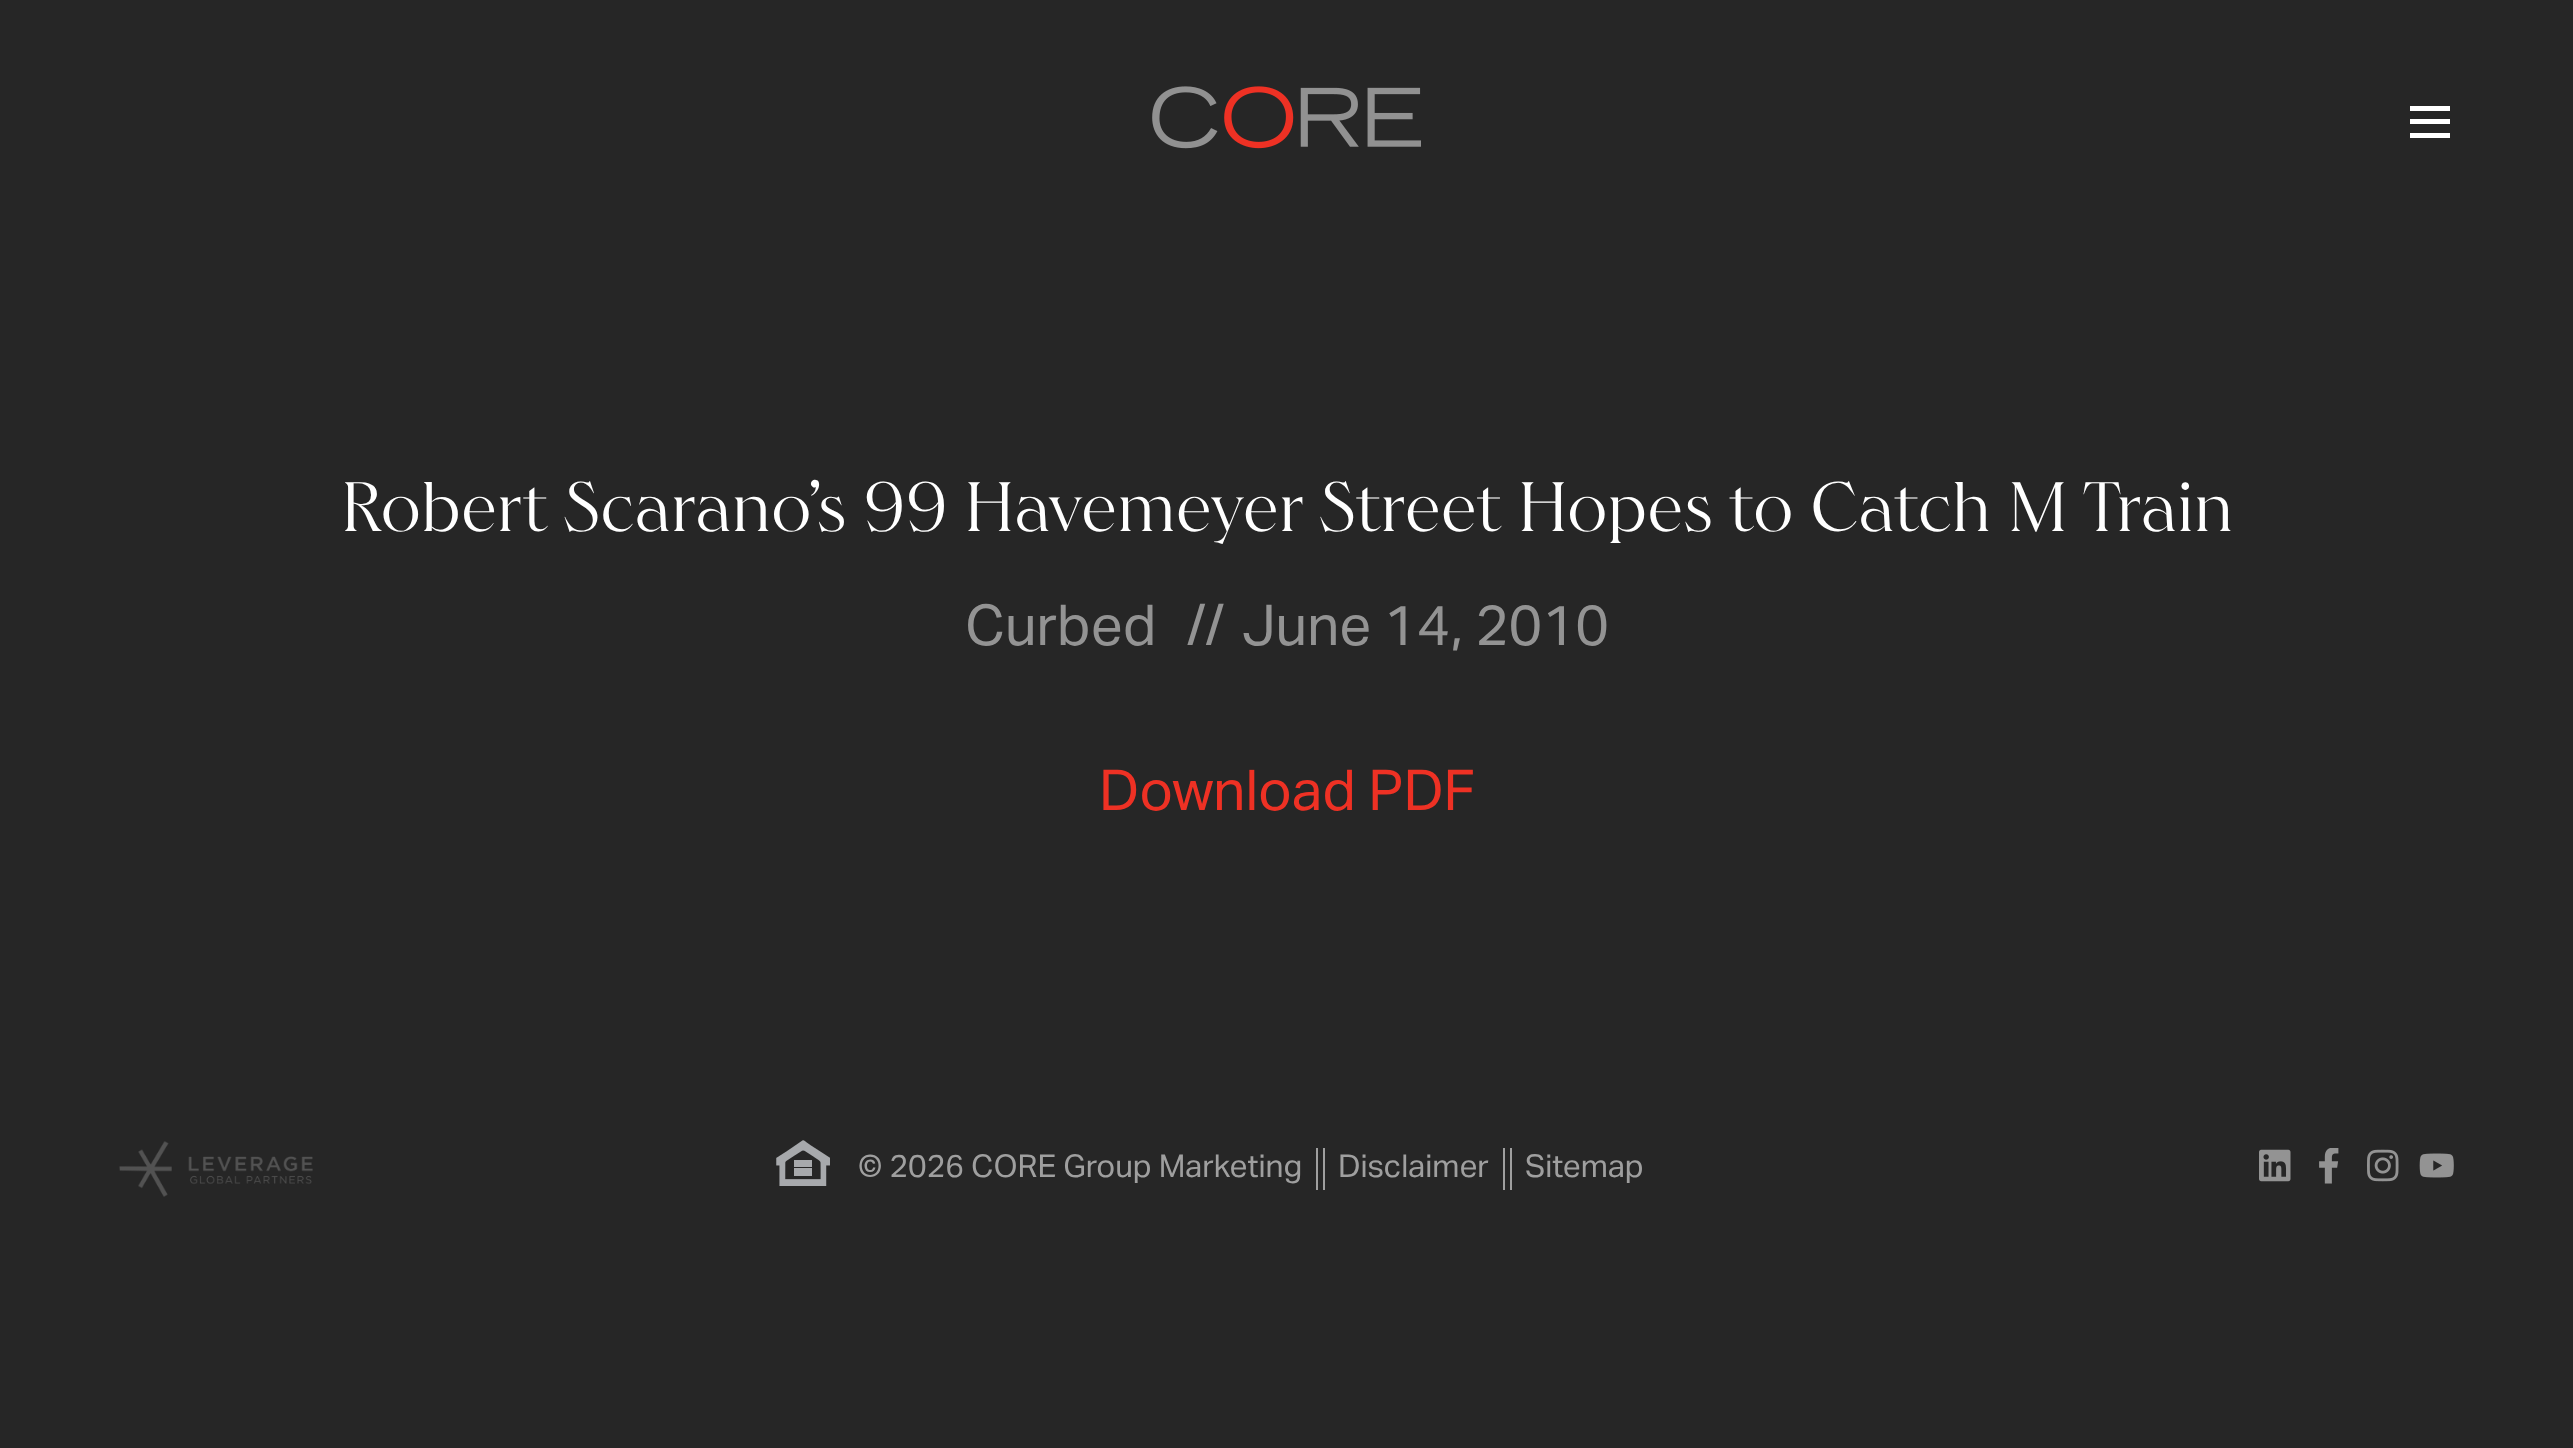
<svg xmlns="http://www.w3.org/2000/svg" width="2573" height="1448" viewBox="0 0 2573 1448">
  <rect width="100%" height="100%" fill="#262626"/>
  <image x="1152" y="86" width="269" height="63" href="img1.png"/>
  <rect x="2410" y="106" width="40" height="5" fill="#ffffff"/>
  <rect x="2410" y="119" width="40" height="5" fill="#ffffff"/>
  <rect x="2410" y="133" width="40" height="5" fill="#ffffff"/>
  <text x="341" y="531" font-family="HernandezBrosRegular" font-size="67.5" fill="#ffffff">Robert Scarano’s 99 Havemeyer Street Hopes to Catch M Train</text>
  <text x="965" y="645" font-family="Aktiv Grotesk" font-size="56.25" fill="#939393">Curbed</text>
  <text x="1187" y="645" font-family="Aktiv Grotesk" font-size="56.25" fill="#939393">//</text>
  <text x="1242" y="645" font-family="Aktiv Grotesk" font-size="56.25" fill="#939393">June 14, 2010</text>
  <text x="1099" y="810" font-family="Aktiv Grotesk" font-size="56.25" fill="#ee3124">Download PDF</text>
  <image x="119" y="1141" width="194" height="56" href="img2.png"/>
  <image x="776" y="1140" width="54" height="46" href="img3.png"/>
  <rect x="1316" y="1148" width="2" height="42" fill="#9f9f9f"/>
  <text x="858" y="1177" font-family="Aktiv Grotesk" font-size="31.5" fill="#9f9f9f">© 2026 CORE Group Marketing</text>
  <rect x="1503" y="1148" width="2" height="42" fill="#9f9f9f"/>
  <rect x="1323" y="1148" width="2" height="42" fill="#9f9f9f"/>
  <text x="1338" y="1177" font-family="Aktiv Grotesk" font-size="31.5" fill="#9f9f9f">Disclaimer</text>
  <rect x="1510" y="1148" width="2" height="42" fill="#9f9f9f"/>
  <text x="1525" y="1177" font-family="Aktiv Grotesk" font-size="31.5" fill="#9f9f9f">Sitemap</text>
  <image x="2259" y="1149" width="32" height="33" href="img4.png"/>
  <image x="2319" y="1148" width="20" height="36" href="img5.png"/>
  <image x="2367" y="1149" width="32" height="33" href="img6.png"/>
  <image x="2419" y="1153" width="35" height="25" href="img7.png"/>
</svg>
